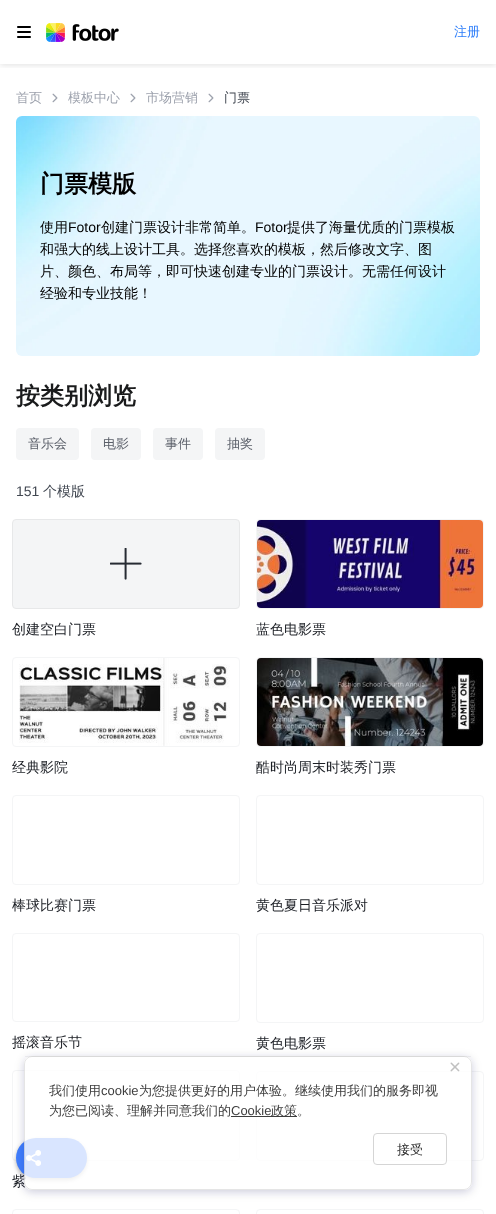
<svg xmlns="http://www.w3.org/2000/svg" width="496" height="1214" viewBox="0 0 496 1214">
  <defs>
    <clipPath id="clip1"><rect x="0" y="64" width="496" height="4"/></clipPath>
    <filter id="blur1" x="-50%" y="-200%" width="200%" height="500%"><feGaussianBlur stdDeviation="3"/></filter>
    <filter id="blur2" x="-50%" y="-200%" width="200%" height="500%"><feGaussianBlur stdDeviation="2"/></filter>
    <clipPath id="clip2"><path d="M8 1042H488V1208H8ZM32 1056H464C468.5 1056 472 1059.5 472 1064V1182C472 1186.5 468.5 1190 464 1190H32C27.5 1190 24 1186.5 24 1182V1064C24 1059.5 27.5 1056 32 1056Z" clip-rule="evenodd"/></clipPath>
    <filter id="blur3" x="-50%" y="-200%" width="200%" height="500%"><feGaussianBlur stdDeviation="5"/></filter>
  </defs>
  <rect width="100%" height="100%" fill="#ffffff"/>
  <g clip-path="url(#clip1)">
    <rect x="0" y="1" width="496" height="64" fill="#000000" fill-opacity="0.12" filter="url(#blur1)"/>
  </g>
  <image x="46" y="23" width="73" height="19" href="img1.png"/>
  <image x="17" y="26" width="14" height="12" href="img2.png"/>
  <text x="454" y="36" font-family="WenQuanYi Zen Hei" font-size="13" font-weight="500" fill="#2c7dfa">注册</text>
  <text x="16" y="102" font-family="WenQuanYi Zen Hei" font-size="13" font-weight="500" fill="#9da2ad">首页</text>
  <image x="52" y="93" width="6" height="10" href="img3.png"/>
  <text x="68" y="102" font-family="WenQuanYi Zen Hei" font-size="13" font-weight="500" fill="#9da2ad">模板中心</text>
  <image x="130" y="93" width="6" height="10" href="img3.png"/>
  <text x="146" y="102" font-family="WenQuanYi Zen Hei" font-size="13" font-weight="500" fill="#9da2ad">市场营销</text>
  <image x="208" y="93" width="6" height="10" href="img3.png"/>
  <text x="224" y="102" font-family="WenQuanYi Zen Hei" font-size="13" font-weight="500" fill="#414751">门票</text>
  <image x="16" y="116" width="464" height="240" href="img4.png"/>
  <text x="40" y="192" font-family="WenQuanYi Zen Hei" font-size="24" font-weight="bold" fill="#000000">门票模版</text>
  <text x="40" y="232" font-family="WenQuanYi Zen Hei" font-size="14" font-weight="500" fill="#000000">使用</text>
  <text x="68" y="232" font-family="Liberation Sans" font-size="14" fill="#000000">Fotor</text>
  <text x="101" y="232" font-family="WenQuanYi Zen Hei" font-size="14" font-weight="500" fill="#000000">创建门票设计非常简单。</text>
  <text x="255" y="232" font-family="Liberation Sans" font-size="14" fill="#000000">Fotor</text>
  <text x="287" y="232" font-family="WenQuanYi Zen Hei" font-size="14" font-weight="500" fill="#000000">提供了海量优质的门票模板</text>
  <text x="40" y="254" font-family="WenQuanYi Zen Hei" font-size="14" font-weight="500" fill="#000000">和强大的线上设计工具。选择您喜欢的模板，然后修改文字、图</text>
  <text x="40" y="276" font-family="WenQuanYi Zen Hei" font-size="14" font-weight="500" fill="#000000">片、颜色、布局等，即可快速创建专业的门票设计。无需任何设计</text>
  <text x="40" y="298" font-family="WenQuanYi Zen Hei" font-size="14" font-weight="500" fill="#000000">经验和专业技能！</text>
  <text x="16" y="404" font-family="WenQuanYi Zen Hei" font-size="24" font-weight="bold" fill="#1a1b1c">按类别浏览</text>
  <rect x="16" y="428" width="63" height="32" rx="4" fill="#f4f5f6"/>
  <text x="28" y="448" font-family="WenQuanYi Zen Hei" font-size="13" font-weight="500" fill="#5a5f69">音乐会</text>
  <rect x="91" y="428" width="50" height="32" rx="4" fill="#f4f5f6"/>
  <text x="103" y="448" font-family="WenQuanYi Zen Hei" font-size="13" font-weight="500" fill="#5a5f69">电影</text>
  <rect x="153" y="428" width="50" height="32" rx="4" fill="#f4f5f6"/>
  <text x="165" y="448" font-family="WenQuanYi Zen Hei" font-size="13" font-weight="500" fill="#5a5f69">事件</text>
  <rect x="215" y="428" width="50" height="32" rx="4" fill="#f4f5f6"/>
  <text x="227" y="448" font-family="WenQuanYi Zen Hei" font-size="13" font-weight="500" fill="#5a5f69">抽奖</text>
  <text x="16" y="496" font-family="Liberation Sans" font-size="14" fill="#414751">151</text>
  <text x="43" y="496" font-family="WenQuanYi Zen Hei" font-size="14" font-weight="500" fill="#414751">个模版</text>
  <rect x="12.5" y="519.5" width="227" height="89" rx="3.5" fill="#f4f5f6" stroke="#e7e8e9"/>
  <image x="110" y="548" width="32" height="32" href="img5.png"/>
  <text x="12" y="634" font-family="WenQuanYi Zen Hei" font-size="14" font-weight="500" fill="#1b1e24">创建空白门票</text>
  <rect x="256.5" y="519.5" width="227" height="89" rx="3.5" fill="none" stroke="#f4f5f6"/>
  <image x="257" y="520" width="226" height="88" href="img6.png"/>
  <text x="256" y="634" font-family="WenQuanYi Zen Hei" font-size="14" font-weight="500" fill="#1b1e24">蓝色电影票</text>
  <rect x="12.5" y="657.5" width="227" height="89" rx="3.5" fill="none" stroke="#f4f5f6"/>
  <image x="19" y="658" width="211" height="88" href="img7.png"/>
  <text x="12" y="772" font-family="WenQuanYi Zen Hei" font-size="14" font-weight="500" fill="#1b1e24">经典影院</text>
  <rect x="256.5" y="657.5" width="227" height="89" rx="3.5" fill="none" stroke="#f4f5f6"/>
  <image x="257" y="658" width="226" height="88" href="img8.png"/>
  <text x="256" y="772" font-family="WenQuanYi Zen Hei" font-size="14" font-weight="500" fill="#1b1e24">酷时尚周末时装秀门票</text>
  <rect x="12.5" y="795.5" width="227" height="89" rx="3.5" fill="none" stroke="#f4f5f6"/>
  <text x="12" y="910" font-family="WenQuanYi Zen Hei" font-size="14" font-weight="500" fill="#1b1e24">棒球比赛门票</text>
  <rect x="256.5" y="795.5" width="227" height="89" rx="3.5" fill="none" stroke="#f4f5f6"/>
  <text x="256" y="910" font-family="WenQuanYi Zen Hei" font-size="14" font-weight="500" fill="#1b1e24">黄色夏日音乐派对</text>
  <rect x="12.5" y="933.5" width="227" height="88" rx="3.5" fill="none" stroke="#f4f5f6"/>
  <text x="12" y="1047" font-family="WenQuanYi Zen Hei" font-size="14" font-weight="500" fill="#1b1e24">摇滚音乐节</text>
  <rect x="256.5" y="933.5" width="227" height="89" rx="3.5" fill="none" stroke="#f4f5f6"/>
  <text x="256" y="1048" font-family="WenQuanYi Zen Hei" font-size="14" font-weight="500" fill="#1b1e24">黄色电影票</text>
  <rect x="256.5" y="1071.5" width="227" height="89" rx="3.5" fill="none" stroke="#f4f5f6"/>
  <rect x="12.5" y="1070.5" width="227" height="90" rx="3.5" fill="none" stroke="#f4f5f6"/>
  <text x="12" y="1186" font-family="WenQuanYi Zen Hei" font-size="14" font-weight="500" fill="#1b1e24">紫</text>
  <rect x="12.5" y="1209.5" width="227" height="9" rx="3.5" fill="none" stroke="#f4f5f6"/>
  <rect x="256.5" y="1209.5" width="227" height="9" rx="3.5" fill="none" stroke="#f4f5f6"/>
  <rect x="16" y="1140" width="71" height="40" rx="20" fill="#000000" fill-opacity="0.3" filter="url(#blur2)"/>
  <rect x="16" y="1138" width="71" height="40" rx="20" fill="#407efe"/>
  <image x="26" y="1150" width="15" height="16" href="img10.png"/>
  <g clip-path="url(#clip2)">
    <rect x="24" y="1058" width="448" height="134" rx="8" fill="#16174d" fill-opacity="0.2" filter="url(#blur3)"/>
  </g>
  <rect x="24" y="1056" width="448" height="134" rx="8" fill="#ffffff" fill-opacity="0.8"/>
  <rect x="24.5" y="1056.5" width="447" height="133" rx="7.5" fill="none" stroke="#000000" stroke-opacity="0.1"/>
  <rect x="25" y="1056" width="446" height="1" fill="#000000" fill-opacity="0.05"/>
  <image x="450" y="1062" width="10" height="10" href="img9.png"/>
  <text x="49" y="1095" font-family="WenQuanYi Zen Hei" font-size="13" font-weight="500" fill="#3d3d3d">我们使用</text>
  <text x="101" y="1095" font-family="Liberation Sans" font-size="13" fill="#3d3d3d">cookie</text>
  <text x="139" y="1095" font-family="WenQuanYi Zen Hei" font-size="13" font-weight="500" fill="#3d3d3d">为您提供更好的用户体验。继续使用我们的服务即视</text>
  <text x="49" y="1115" font-family="WenQuanYi Zen Hei" font-size="13" font-weight="500" fill="#3d3d3d">为您已阅读、理解并同意我们的</text>
  <text x="231" y="1115" font-family="Liberation Sans" font-size="13" fill="#3d3d3d">Cookie</text>
  <rect x="231" y="1116" width="66" height="1" fill="#3d3d3d"/>
  <text x="271" y="1115" font-family="WenQuanYi Zen Hei" font-size="13" font-weight="500" fill="#3d3d3d">政策。</text>
  <rect x="373.5" y="1133.5" width="73" height="31" rx="3.5" fill="none" stroke="#d5d5d5"/>
  <text x="397" y="1154" font-family="WenQuanYi Zen Hei" font-size="13" font-weight="500" fill="#2b2b2b">接受</text>
</svg>
